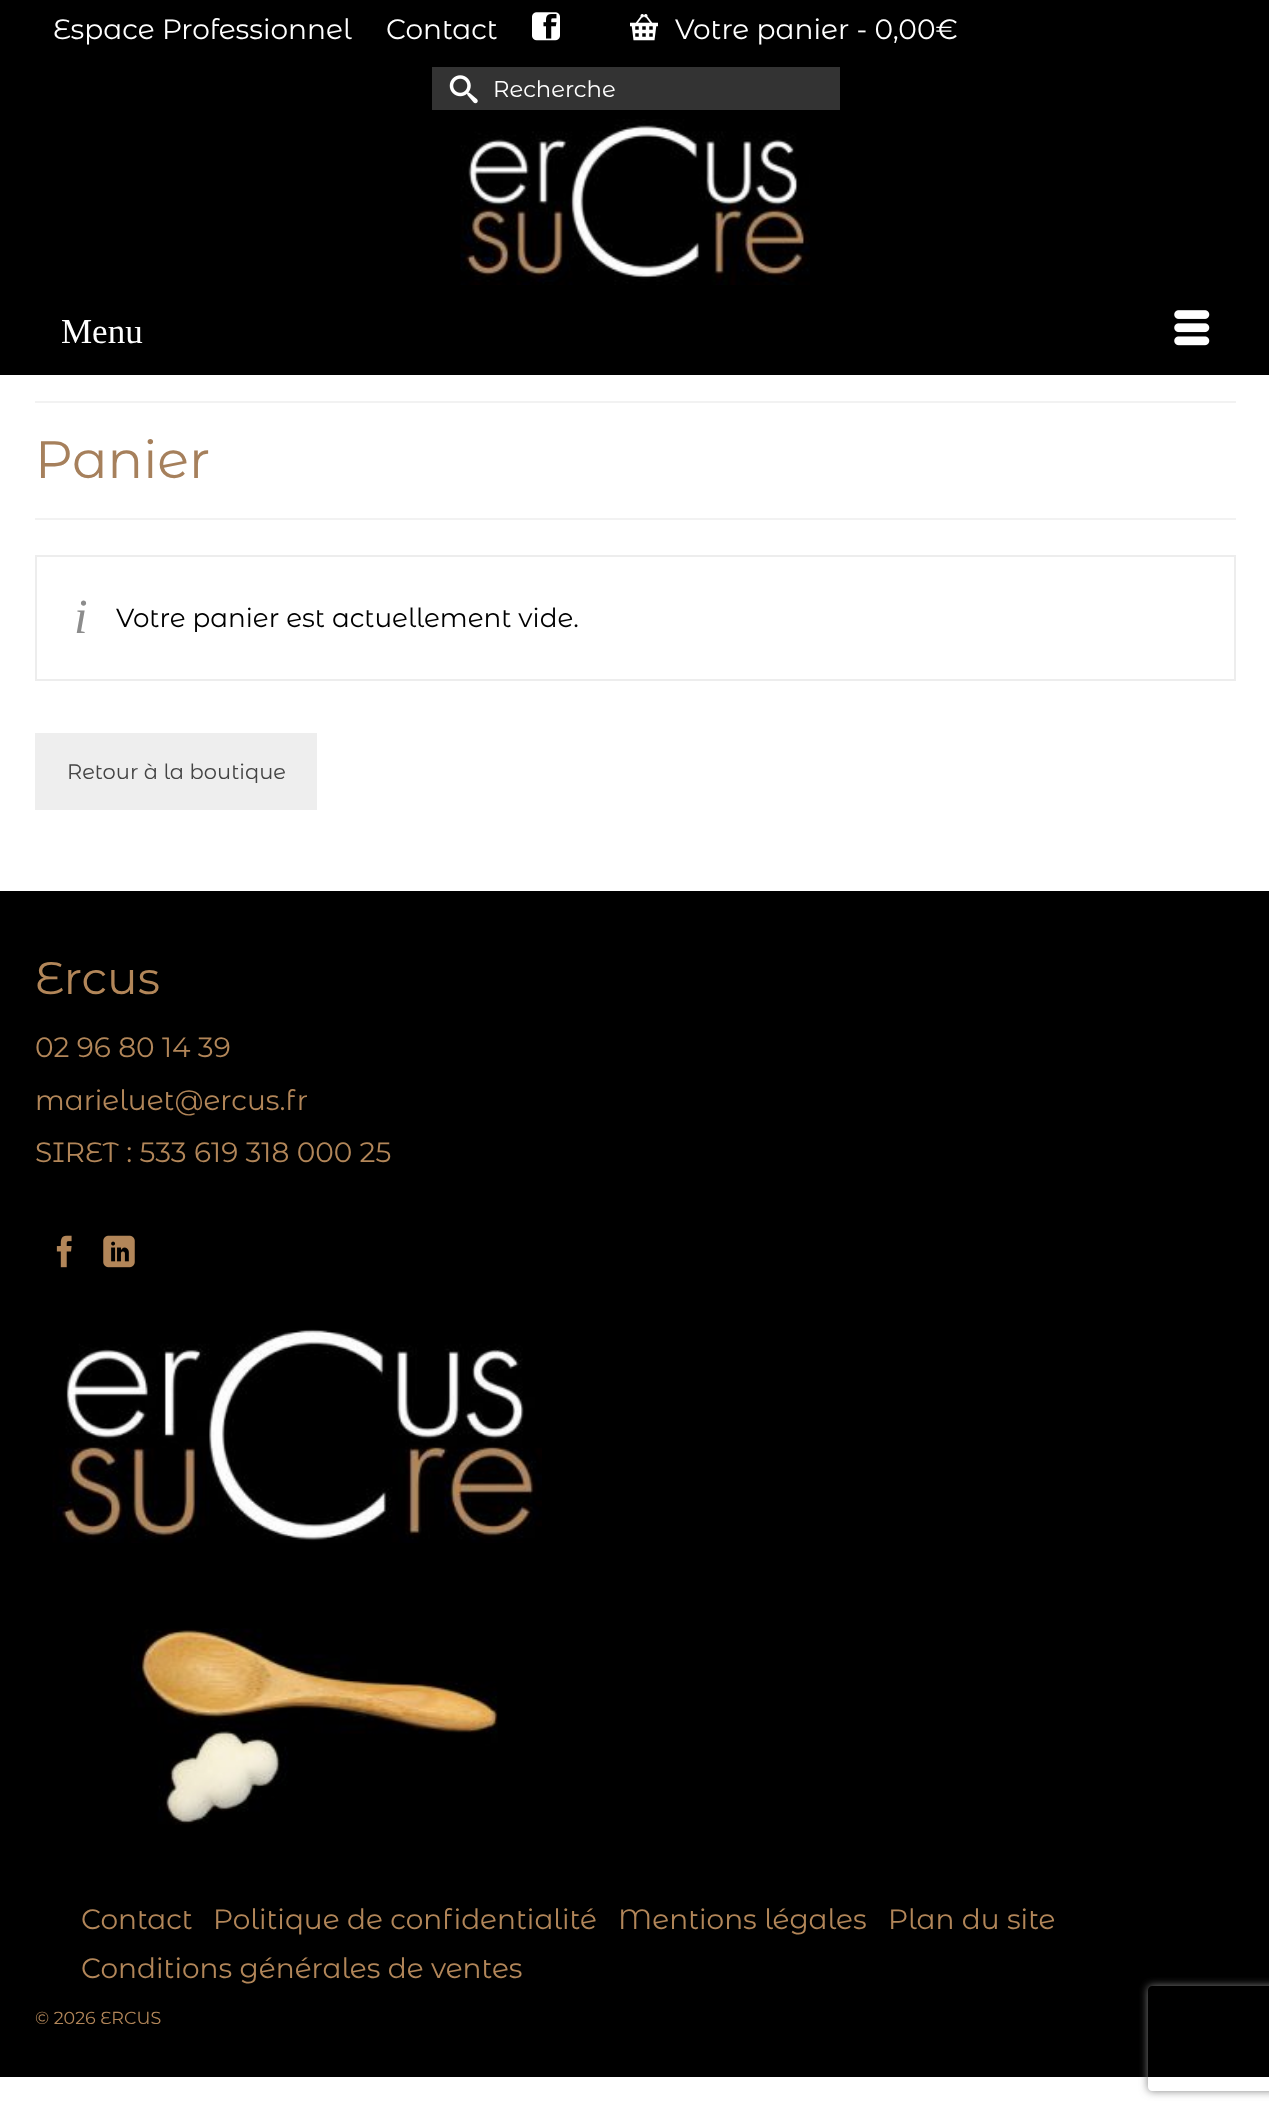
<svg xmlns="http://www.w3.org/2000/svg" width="1269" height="2115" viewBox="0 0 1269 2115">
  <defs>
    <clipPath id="clip1"><path d="M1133 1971H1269V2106H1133ZM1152 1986H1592C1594 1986 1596 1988 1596 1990V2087C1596 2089 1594 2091 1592 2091H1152C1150 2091 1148 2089 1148 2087V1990C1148 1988 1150 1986 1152 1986Z" clip-rule="evenodd"/></clipPath>
    <filter id="blur1" x="-50%" y="-200%" width="200%" height="500%"><feGaussianBlur stdDeviation="4.5"/></filter>
  </defs>
  <rect width="100%" height="100%" fill="#ffffff"/>
  <rect x="0" y="0" width="1269" height="375" fill="#000000"/>
  <text x="53" y="39" font-family="Montserrat Alternates" font-size="28" fill="#ffffff">Espace Professionnel</text>
  <text x="386" y="39" font-family="Montserrat Alternates" font-size="28" fill="#ffffff">Contact</text>
  <image x="532" y="12" width="28" height="29" href="img1.png"/>
  <image x="630" y="14" width="28" height="27" href="img2.png"/>
  <text x="675" y="39" font-family="Montserrat Alternates" font-size="28" fill="#ffffff">Votre panier - 0,00€</text>
  <rect x="432" y="67" width="408" height="43" fill="#333333"/>
  <image x="449" y="75" width="29" height="29" href="img3.png"/>
  <text x="493" y="97" font-family="Montserrat Alternates" font-size="22.75" fill="#ffffff">Recherche</text>
  <image x="460" y="119" width="350" height="166" href="img4.png"/>
  <text x="61" y="343" font-family="Liberation Serif" font-size="35" fill="#ffffff">Menu</text>
  <image x="1174" y="310" width="36" height="36" href="img5.png"/>
  <rect x="35" y="401" width="1201" height="2" fill="#f2f2f2"/>
  <rect x="35" y="518" width="1201" height="2" fill="#f2f2f2"/>
  <text x="35" y="478" font-family="Montserrat Alternates" font-size="52.5" fill="#a6805c">Panier</text>
  <rect x="36" y="556" width="1199" height="124" fill="none" stroke="#ededed" stroke-width="2"/>
  <text x="74" y="633" font-family="Liberation Serif" font-size="49" font-style="italic" fill="#8c8c8c">i</text>
  <text x="116" y="627" font-family="Montserrat Alternates" font-size="26.25" fill="#000000">Votre panier est actuellement vide.</text>
  <rect x="35" y="733" width="282" height="77" fill="#eeeeee"/>
  <text x="67" y="779" font-family="Montserrat Alternates" font-size="21" fill="#444444">Retour à la boutique</text>
  <rect x="0" y="891" width="1269" height="1186" fill="#000000"/>
  <text x="35" y="994" font-family="Montserrat Alternates" font-size="45.5" fill="#b28659">Ercus</text>
  <text x="35" y="1057" font-family="Montserrat Alternates" font-size="28" fill="#b28659">02 96 80 14 39</text>
  <text x="35" y="1110" font-family="Montserrat Alternates" font-size="28" fill="#b28659">marieluet@ercus.fr</text>
  <text x="35" y="1162" font-family="Montserrat Alternates" font-size="28" fill="#b28659">SIRET : 533 619 318 000 25</text>
  <image x="56" y="1235" width="16" height="33" href="img6.png"/>
  <image x="103" y="1235" width="32" height="33" href="img7.png"/>
  <image x="52" y="1329" width="490" height="214" href="img8.png"/>
  <image x="131" y="1628" width="367" height="197" href="img9.png"/>
  <text x="81" y="1929" font-family="Montserrat Alternates" font-size="28" fill="#b28659">Contact</text>
  <text x="213" y="1929" font-family="Montserrat Alternates" font-size="28" fill="#b28659">Politique de confidentialité</text>
  <text x="618" y="1929" font-family="Montserrat Alternates" font-size="28" fill="#b28659">Mentions légales</text>
  <text x="888" y="1929" font-family="Montserrat Alternates" font-size="28" fill="#b28659">Plan du site</text>
  <text x="81" y="1978" font-family="Montserrat Alternates" font-size="28" fill="#b28659">Conditions générales de ventes</text>
  <text x="35" y="2024" font-family="Montserrat Alternates" font-size="17.5" fill="#b28659">© 2026 ERCUS</text>
  <g clip-path="url(#clip1)">
    <rect x="1148" y="1986" width="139" height="105" rx="4" fill="#808080" filter="url(#blur1)"/>
  </g>
</svg>
